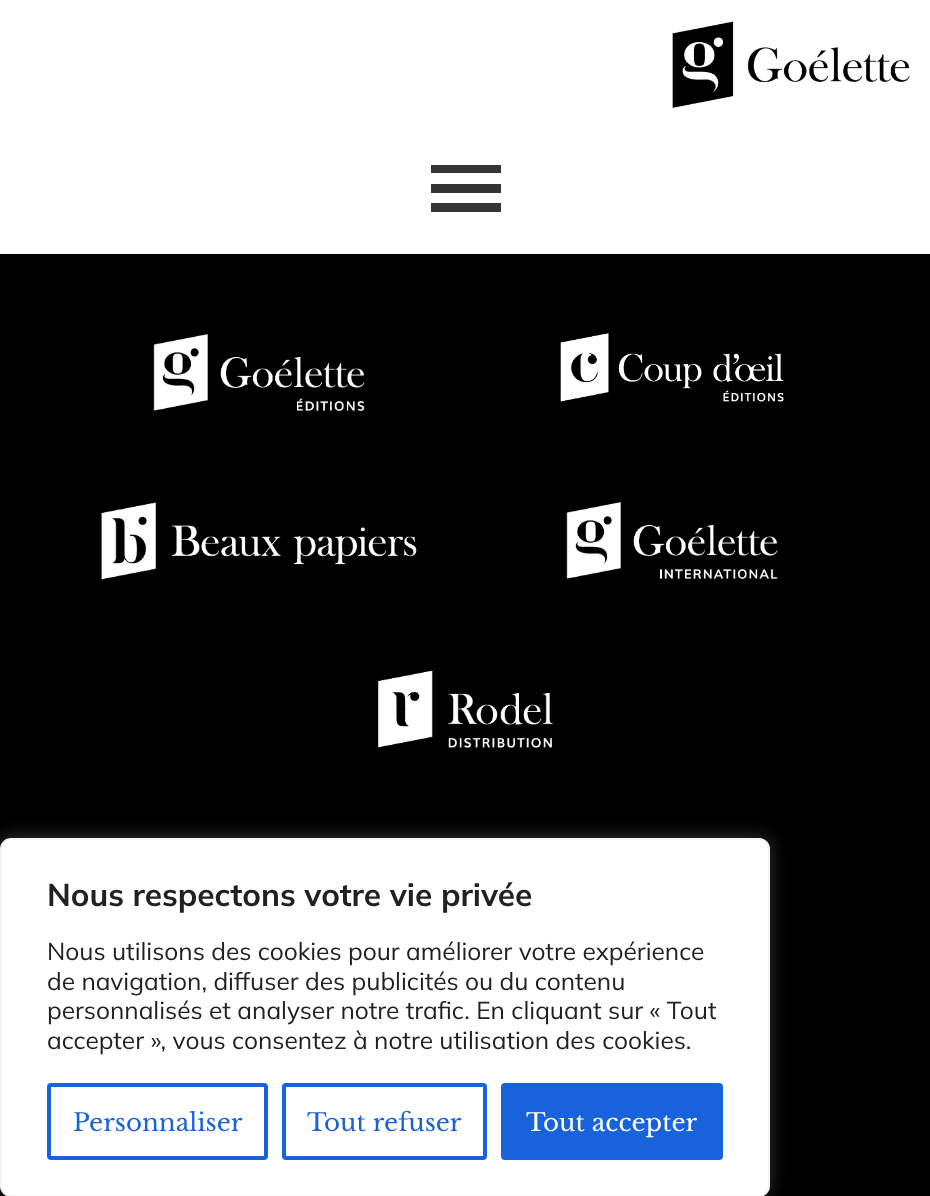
<svg xmlns="http://www.w3.org/2000/svg" width="930" height="1196" viewBox="0 0 930 1196">
  <defs>
    <filter id="blur1" x="-50%" y="-200%" width="200%" height="500%"><feGaussianBlur stdDeviation="9"/></filter>
  </defs>
  <rect width="100%" height="100%" fill="#ffffff"/>
  <image x="672" y="21" width="238" height="87" href="img1.png"/>
  <rect x="431" y="165" width="70" height="8" fill="#353535"/>
  <rect x="431" y="184" width="70" height="9" fill="#353535"/>
  <rect x="431" y="203" width="70" height="9" fill="#353535"/>
  <rect x="0" y="254" width="930" height="942" fill="#000000"/>
  <image x="153" y="334" width="212" height="77" href="img2.png"/>
  <image x="560" y="333" width="224" height="69" href="img3.png"/>
  <image x="101" y="502" width="316" height="78" href="img4.png"/>
  <image x="566" y="502" width="212" height="77" href="img5.png"/>
  <image x="378" y="670" width="175" height="78" href="img6.png"/>
  <rect x="0" y="837" width="770" height="358" rx="11" fill="#acabab" fill-opacity="0.3" filter="url(#blur1)"/>
  <rect x="1" y="839" width="768" height="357" rx="10" fill="#ffffff" stroke="#f4f4f4" stroke-width="2"/>
  <text x="47" y="906" font-family="Mulish" font-size="31.5" font-weight="bold" fill="#212121">Nous respectons votre vie privée</text>
  <text x="47" y="960" font-family="Mulish" font-size="24.5" fill="#212121">Nous utilisons des cookies pour améliorer votre expérience</text>
  <text x="47" y="990" font-family="Mulish" font-size="24.5" fill="#212121">de navigation, diffuser des publicités ou du contenu</text>
  <text x="47" y="1019" font-family="Mulish" font-size="24.5" fill="#212121">personnalisés et analyser notre trafic. En cliquant sur « Tout</text>
  <text x="47" y="1049" font-family="Mulish" font-size="24.5" fill="#212121">accepter », vous consentez à notre utilisation des cookies.</text>
  <rect x="49" y="1085" width="217" height="73" rx="2" fill="none" stroke="#1863dc" stroke-width="4"/>
  <text x="73" y="1131" font-family="Libre Baskerville" font-size="24.5" fill="#1863dc">Personnaliser</text>
  <rect x="284" y="1085" width="201" height="73" rx="2" fill="none" stroke="#1863dc" stroke-width="4"/>
  <text x="307" y="1131" font-family="Libre Baskerville" font-size="24.5" fill="#1863dc">Tout refuser</text>
  <rect x="503" y="1085" width="218" height="73" rx="2" fill="#1863dc" stroke="#1863dc" stroke-width="4"/>
  <text x="526" y="1131" font-family="Libre Baskerville" font-size="24.5" fill="#ffffff">Tout accepter</text>
</svg>
